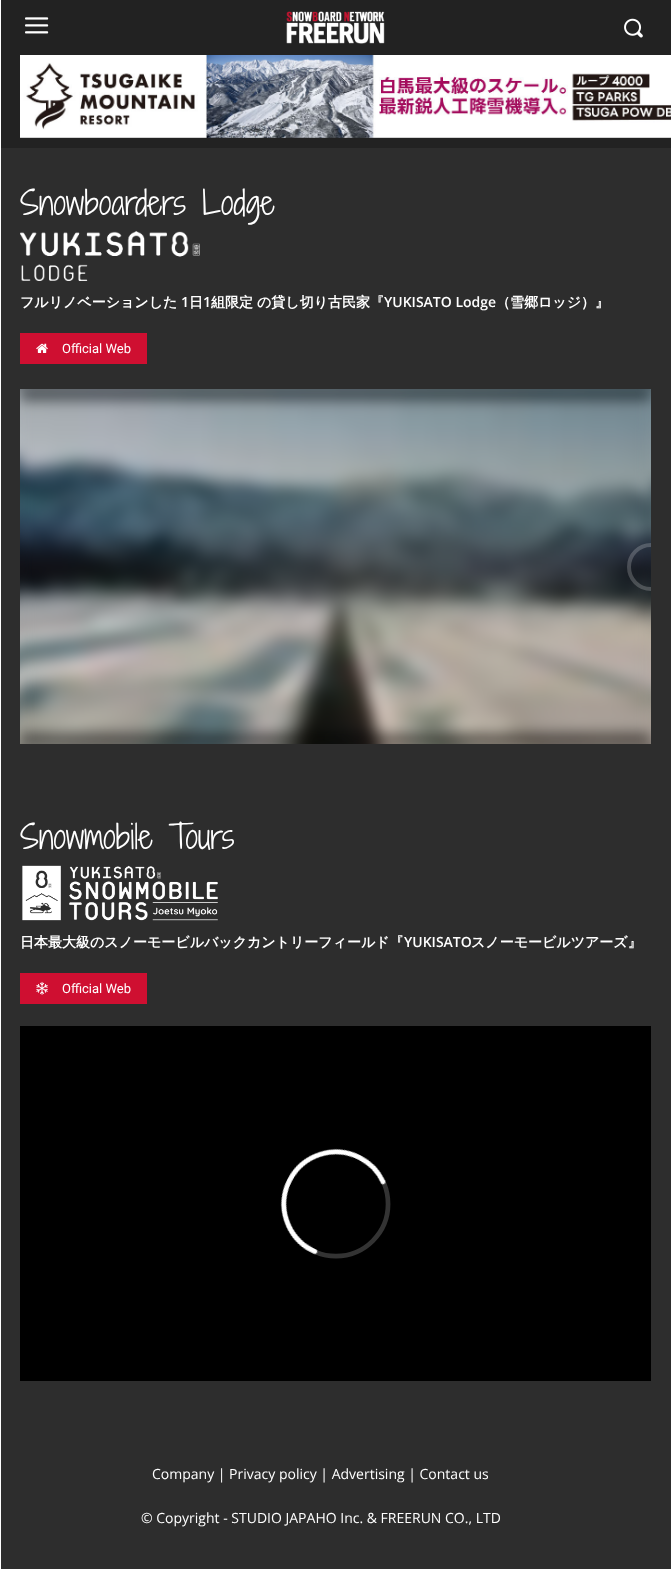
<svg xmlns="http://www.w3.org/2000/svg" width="671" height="1569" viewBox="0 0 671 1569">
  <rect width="100%" height="100%" fill="#ffffff"/>
  <rect x="1" y="0" width="670" height="148" fill="#222222"/>
  <image x="25" y="17" width="24" height="17" href="img1.png"/>
  <image x="286" y="11" width="99" height="33" href="img2.png"/>
  <image x="624" y="18" width="19" height="20" href="img3.png"/>
  <image x="20" y="55" width="651" height="83" href="img4.png"/>
  <rect x="1" y="148" width="670" height="1421" fill="#2d2d2d"/>
  <text x="20" y="215" font-family="Shadows Into Light Two" font-size="32" font-weight="300" fill="#ffffff">Snowboarders Lodge</text>
  <image x="20" y="231" width="180" height="50" href="img5.png"/>
  <text x="20" y="307" font-family="WenQuanYi Zen Hei" font-size="14" font-weight="bold" fill="#ffffff">フルリノベーションした</text>
  <text x="181" y="307" font-family="Open Sans" font-size="14" font-weight="600" fill="#ffffff">1</text>
  <text x="189" y="307" font-family="WenQuanYi Zen Hei" font-size="14" font-weight="bold" fill="#ffffff">日</text>
  <text x="203" y="307" font-family="Open Sans" font-size="14" font-weight="600" fill="#ffffff">1</text>
  <text x="211" y="307" font-family="WenQuanYi Zen Hei" font-size="14" font-weight="bold" fill="#ffffff">組限定</text>
  <text x="257" y="307" font-family="WenQuanYi Zen Hei" font-size="14" font-weight="bold" fill="#ffffff">の貸し切り古民家『</text>
  <text x="384" y="307" font-family="Open Sans" font-size="14" font-weight="600" fill="#ffffff">YUKISATO Lodge</text>
  <text x="496" y="307" font-family="WenQuanYi Zen Hei" font-size="14" font-weight="bold" fill="#ffffff">（雪郷ロッジ）』</text>
  <rect x="20" y="333" width="127" height="31" fill="#cf0f31"/>
  <image x="36" y="343" width="12" height="10" href="img6.png"/>
  <text x="62" y="353" font-family="Roboto" font-size="13" fill="#ffffff">Official Web</text>
  <image x="20" y="389" width="631" height="355" href="img7.png"/>
  <text x="20" y="849" font-family="Shadows Into Light Two" font-size="32" font-weight="300" fill="#ffffff">Snowmobile Tours</text>
  <image x="22" y="865" width="196" height="56" href="img8.png"/>
  <text x="20" y="947" font-family="WenQuanYi Zen Hei" font-size="14" font-weight="bold" fill="#ffffff">日本最⼤級のスノーモービルバックカントリーフィールド『</text>
  <text x="404" y="947" font-family="Open Sans" font-size="14" font-weight="600" fill="#ffffff">YUKISATO</text>
  <text x="471" y="947" font-family="WenQuanYi Zen Hei" font-size="14" font-weight="bold" fill="#ffffff">スノーモービルツアーズ』</text>
  <rect x="20" y="973" width="127" height="31" fill="#cf0f31"/>
  <image x="36" y="981" width="12" height="14" href="img9.png"/>
  <text x="62" y="993" font-family="Roboto" font-size="13" fill="#ffffff">Official Web</text>
  <image x="20" y="1026" width="631" height="355" href="img10.png"/>
  <text x="152" y="1479" font-family="Open Sans" font-size="14" fill="#ffffff">Company | Privacy policy | Advertising | Contact us</text>
  <text x="141" y="1523" font-family="Open Sans" font-size="14" fill="#ffffff">© Copyright - STUDIO JAPAHO Inc. &amp; FREERUN CO., LTD</text>
</svg>
